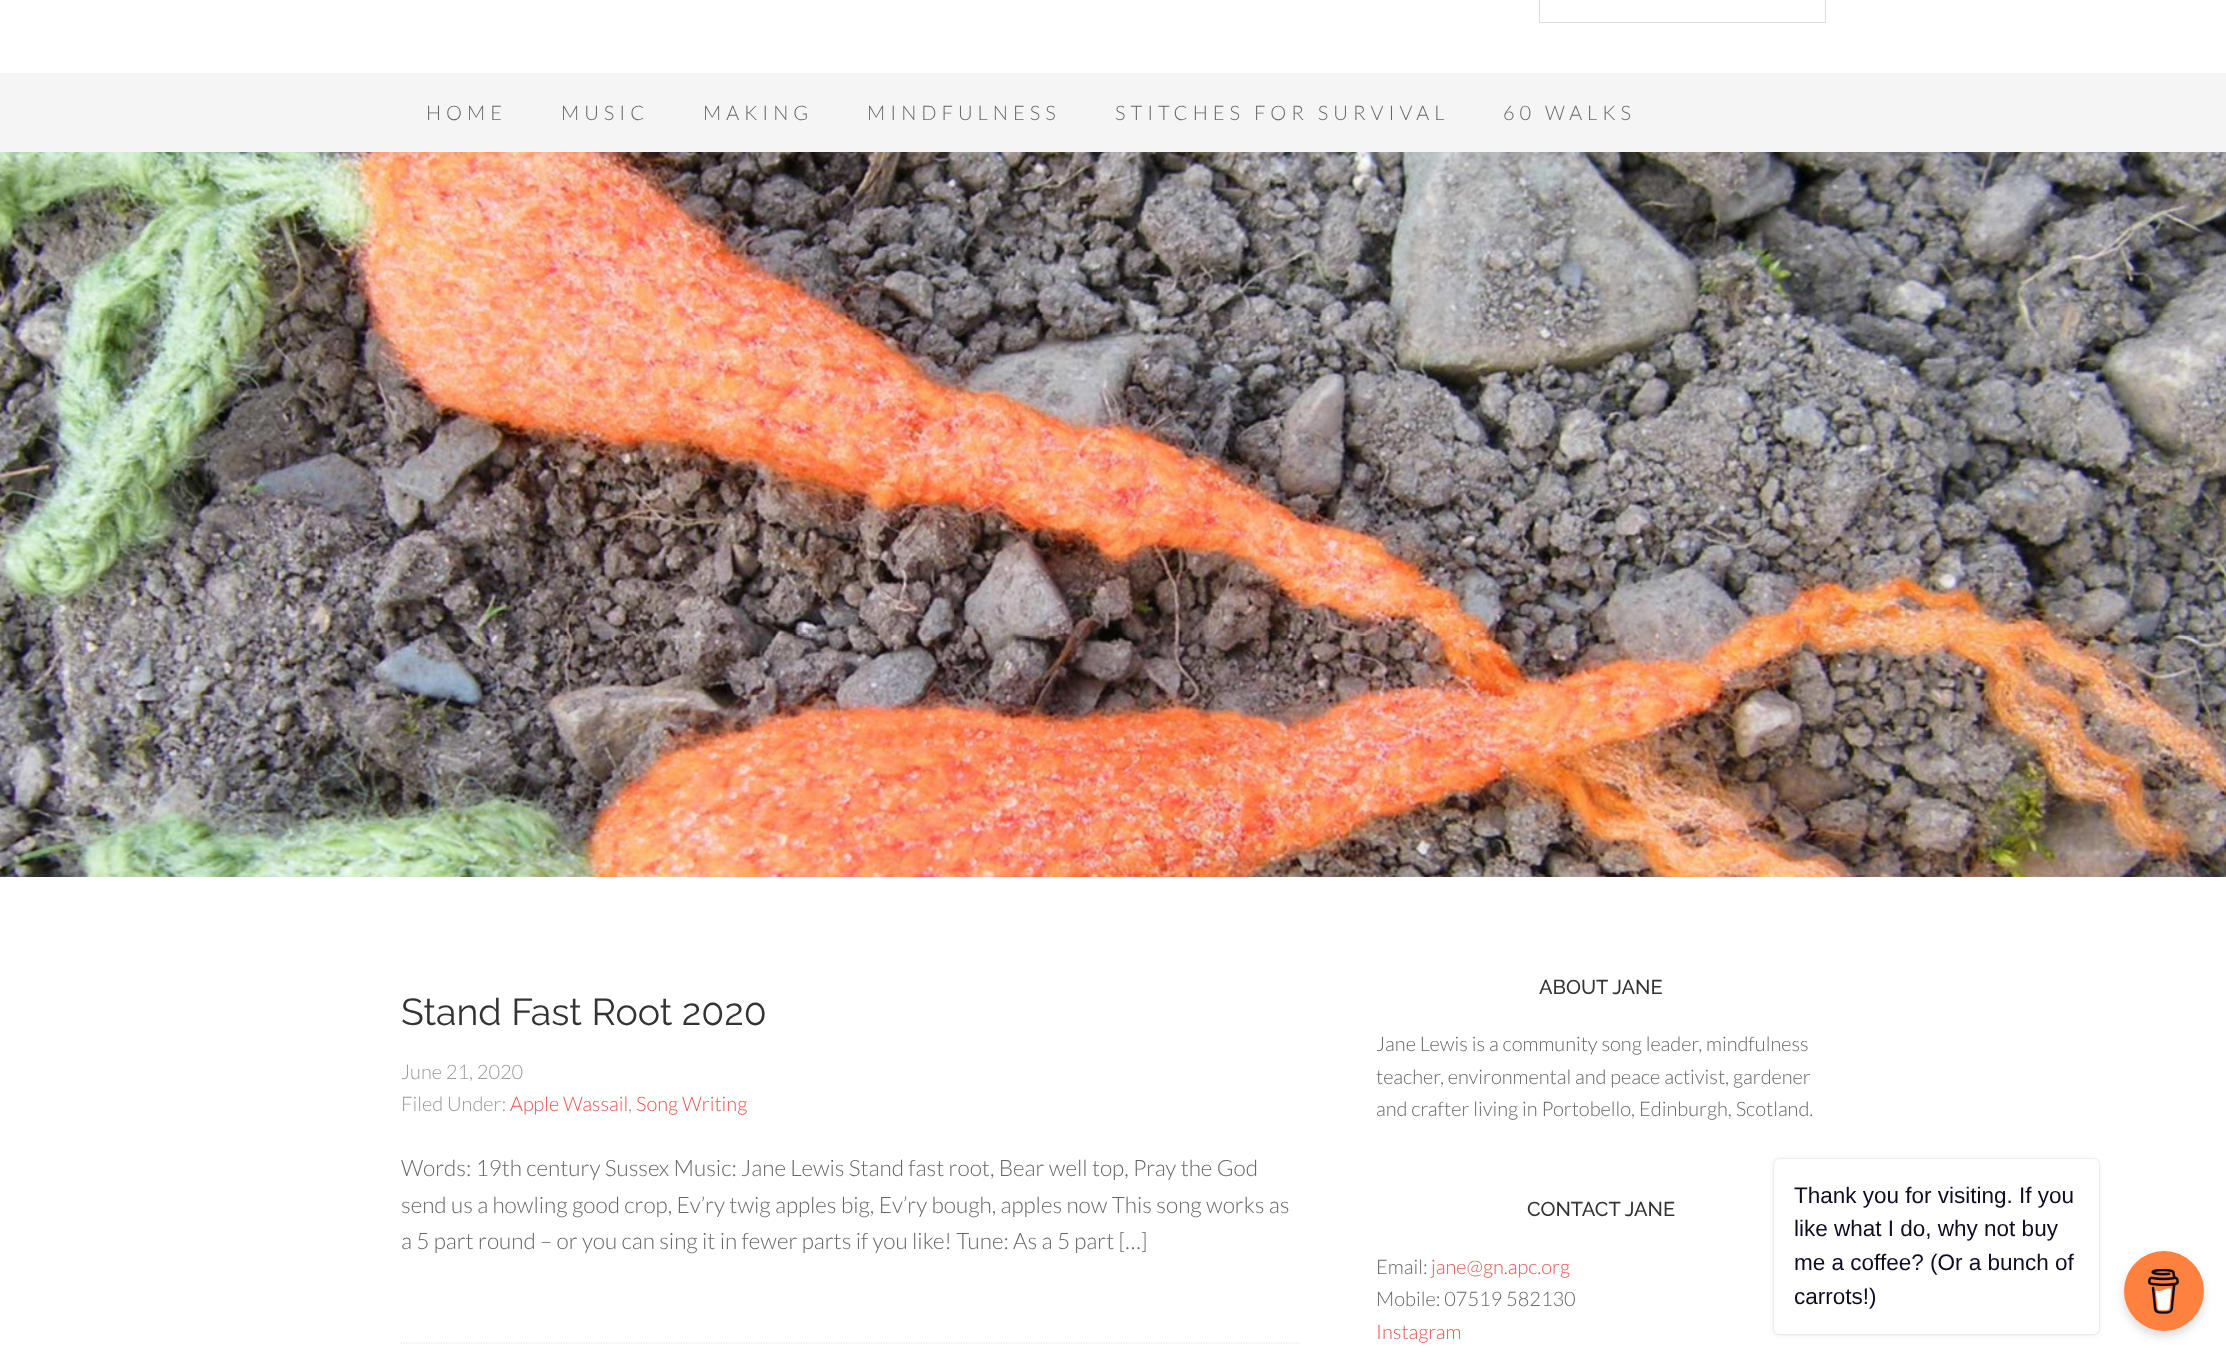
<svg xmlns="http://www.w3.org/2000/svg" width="2226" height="1353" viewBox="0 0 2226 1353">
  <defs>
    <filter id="blur1" x="-50%" y="-200%" width="200%" height="500%"><feGaussianBlur stdDeviation="1"/></filter>
    <filter id="blur2" x="-50%" y="-200%" width="200%" height="500%"><feGaussianBlur stdDeviation="3"/></filter>
    <filter id="blur3" x="-50%" y="-200%" width="200%" height="500%"><feGaussianBlur stdDeviation="5"/></filter>
  </defs>
  <rect width="100%" height="100%" fill="#ffffff"/>
  <rect x="1539.5" y="-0.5" width="286" height="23" fill="none" stroke="#dddddd"/>
  <rect x="0" y="73" width="2226" height="79" fill="#f5f5f5"/>
  <text x="426" y="120" font-family="Lato" font-size="20" font-weight="300" letter-spacing="5" fill="#666666">HOME</text>
  <text x="561" y="120" font-family="Lato" font-size="20" font-weight="300" letter-spacing="5" fill="#666666">MUSIC</text>
  <text x="703" y="120" font-family="Lato" font-size="20" font-weight="300" letter-spacing="5" fill="#666666">MAKING</text>
  <text x="867" y="120" font-family="Lato" font-size="20" font-weight="300" letter-spacing="5" fill="#666666">MINDFULNESS</text>
  <text x="1115" y="120" font-family="Lato" font-size="20" font-weight="300" letter-spacing="5" fill="#666666">STITCHES FOR SURVIVAL</text>
  <text x="1503" y="120" font-family="Lato" font-size="20" font-weight="300" letter-spacing="5" fill="#666666">60 WALKS</text>
  <image x="0" y="152" width="2226" height="725" href="img1.png"/>
  <path d="M401 1343H1301" fill="none" stroke="#dddddd" stroke-width="1.2" stroke-dasharray="1.25 1.25"/>
  <text x="401" y="1025" font-family="Raleway" font-size="37.5" fill="#333333">Stand Fast Root 2020</text>
  <text x="401" y="1079" font-family="Lato" font-size="20" font-weight="300" fill="#999999">June 21, 2020</text>
  <text x="401" y="1111" font-family="Lato" font-size="20" font-weight="300" fill="#999999">Filed Under:</text>
  <text x="510" y="1111" font-family="Lato" font-size="20" font-weight="300" fill="#e5554e">Apple Wassail</text>
  <text x="628" y="1111" font-family="Lato" font-size="20" font-weight="300" fill="#999999">,</text>
  <text x="636" y="1111" font-family="Lato" font-size="20" font-weight="300" fill="#e5554e">Song Writing</text>
  <text x="401" y="1176" font-family="Lato" font-size="22.5" font-weight="300" fill="#666666">Words: 19th century Sussex Music: Jane Lewis Stand fast root, Bear well top, Pray the God</text>
  <text x="401" y="1213" font-family="Lato" font-size="22.5" font-weight="300" fill="#666666">send us a howling good crop, Ev’ry twig apples big, Ev’ry bough, apples now This song works as</text>
  <text x="401" y="1249" font-family="Lato" font-size="22.5" font-weight="300" fill="#666666">a 5 part round – or you can sing it in fewer parts if you like! Tune: As a 5 part […]</text>
  <text x="1539" y="994" font-family="Raleway" font-size="20" font-weight="500" fill="#333333">ABOUT JANE</text>
  <text x="1376" y="1051" font-family="Lato" font-size="20" font-weight="300" fill="#666666">Jane Lewis is a community song leader, mindfulness</text>
  <text x="1376" y="1084" font-family="Lato" font-size="20" font-weight="300" fill="#666666">teacher, environmental and peace activist, gardener</text>
  <text x="1376" y="1116" font-family="Lato" font-size="20" font-weight="300" fill="#666666">and crafter living in Portobello, Edinburgh, Scotland.</text>
  <text x="1527" y="1216" font-family="Raleway" font-size="20" font-weight="500" fill="#333333">CONTACT JANE</text>
  <text x="1376" y="1274" font-family="Lato" font-size="20" font-weight="300" fill="#666666">Email:</text>
  <text x="1431" y="1274" font-family="Lato" font-size="20" font-weight="300" fill="#e5554e">jane@gn.apc.org</text>
  <text x="1376" y="1306" font-family="Lato" font-size="20" font-weight="300" fill="#666666">Mobile: 07519 582130</text>
  <text x="1376" y="1339" font-family="Lato" font-size="20" font-weight="300" fill="#e5554e">Instagram</text>
  <rect x="1774" y="1159" width="325" height="175" rx="5" fill="#000000" fill-opacity="0.15" filter="url(#blur1)"/>
  <rect x="1774" y="1161" width="325" height="175" rx="5" fill="#000000" fill-opacity="0.05" filter="url(#blur2)"/>
  <rect x="1774" y="1159" width="325" height="175" rx="5" fill="#ffffff"/>
  <text x="1794" y="1203" font-family="Liberation Sans" font-size="22.5" fill="#0d0c22">Thank you for visiting. If you</text>
  <text x="1794" y="1236" font-family="Liberation Sans" font-size="22.5" fill="#0d0c22">like what I do, why not buy</text>
  <text x="1794" y="1270" font-family="Liberation Sans" font-size="22.5" fill="#0d0c22">me a coffee? (Or a bunch of</text>
  <text x="1794" y="1304" font-family="Liberation Sans" font-size="22.5" fill="#0d0c22">carrots!)</text>
  <rect x="2124" y="1256" width="80" height="80" rx="40" fill="#000000" fill-opacity="0.15" filter="url(#blur3)"/>
  <circle cx="2164" cy="1291" r="40" fill="#ff813f"/>
  <image x="2148" y="1269" width="31" height="45" href="img2.png"/>
</svg>
